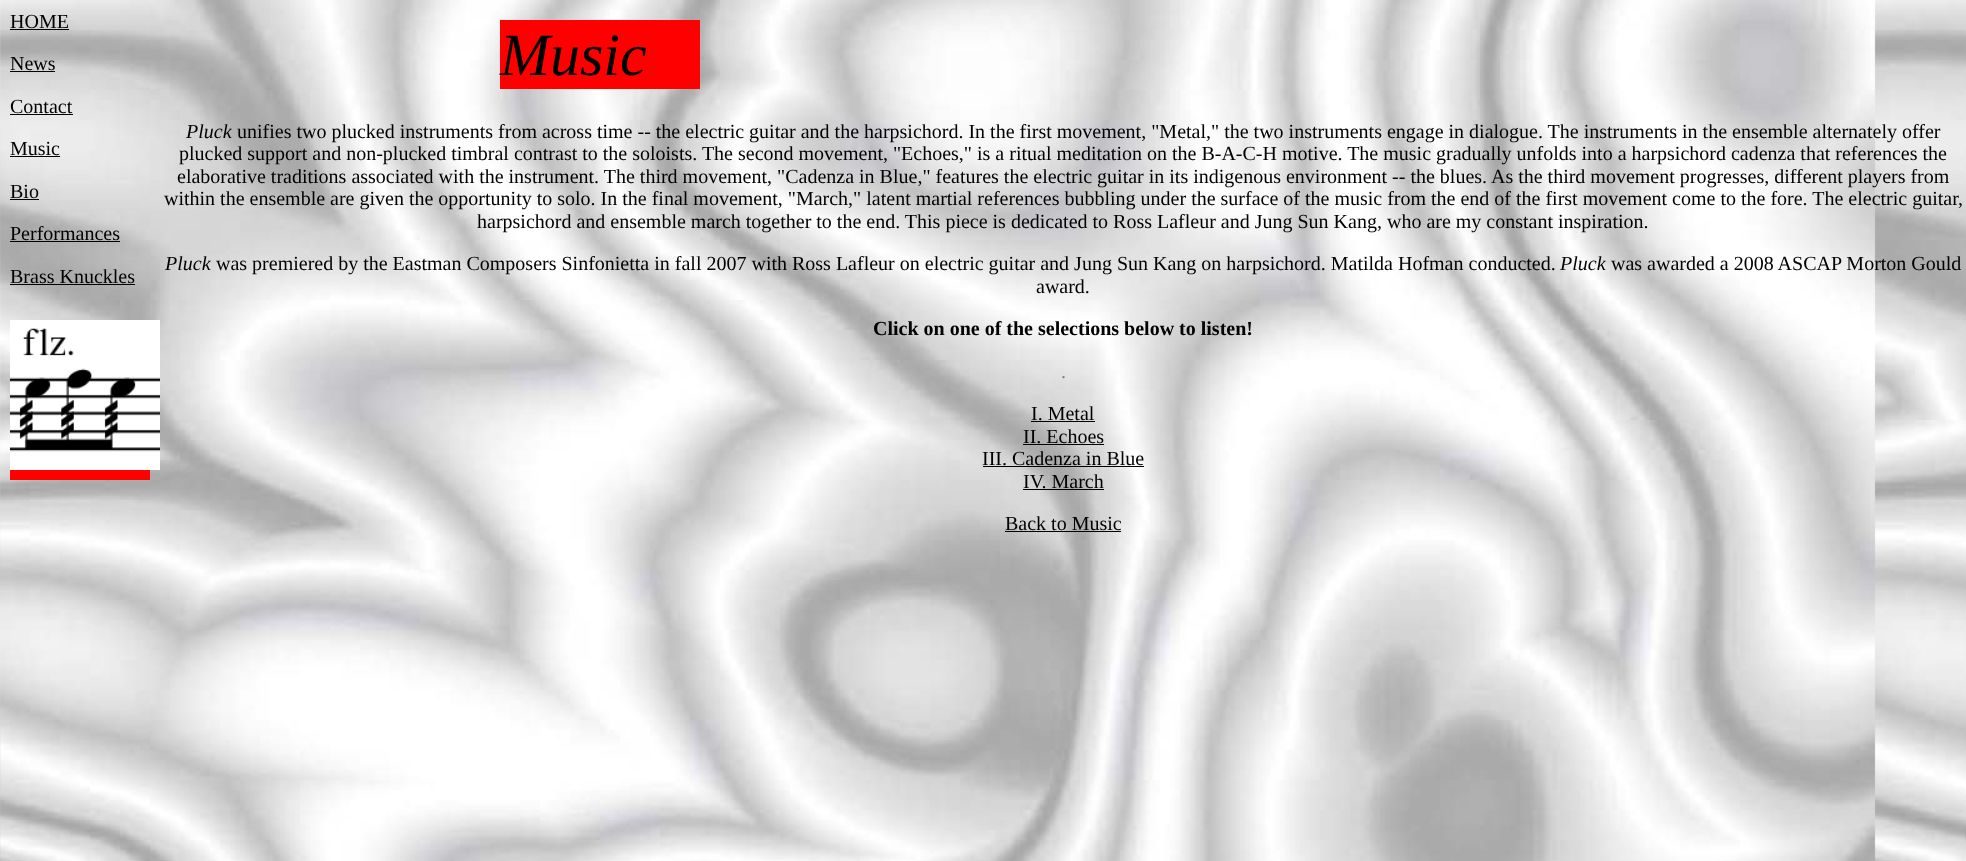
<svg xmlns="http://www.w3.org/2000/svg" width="1966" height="861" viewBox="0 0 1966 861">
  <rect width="100%" height="100%" fill="#ffffff"/>
  <image x="0" y="0" width="1966" height="861" href="img1.png"/>
  <text x="10" y="28" font-family="Liberation Serif" font-size="20" fill="#000000">HOME</text>
  <rect x="10" y="29" width="59" height="1" fill="#000000"/>
  <text x="10" y="70" font-family="Liberation Serif" font-size="20" fill="#000000">News</text>
  <rect x="10" y="71" width="45" height="1" fill="#000000"/>
  <text x="10" y="113" font-family="Liberation Serif" font-size="20" fill="#000000">Contact</text>
  <rect x="10" y="114" width="63" height="1" fill="#000000"/>
  <text x="10" y="155" font-family="Liberation Serif" font-size="20" fill="#000000">Music</text>
  <rect x="10" y="156" width="50" height="1" fill="#000000"/>
  <text x="10" y="198" font-family="Liberation Serif" font-size="20" fill="#000000">Bio</text>
  <rect x="10" y="199" width="29" height="1" fill="#000000"/>
  <text x="10" y="240" font-family="Liberation Serif" font-size="20" fill="#000000">Performances</text>
  <rect x="10" y="241" width="110" height="1" fill="#000000"/>
  <text x="10" y="283" font-family="Liberation Serif" font-size="20" fill="#000000">Brass Knuckles</text>
  <rect x="10" y="284" width="125" height="1" fill="#000000"/>
  <rect x="500" y="20" width="200" height="69" fill="#ff0000"/>
  <text x="500" y="75" font-family="Liberation Serif" font-size="60" font-style="italic" fill="#000000">Music</text>
  <rect x="10" y="470" width="140" height="10" fill="#ff0000"/>
  <image x="10" y="320" width="150" height="150" href="img2.png"/>
  <text x="186" y="138" font-family="Liberation Serif" font-size="20" font-style="italic" fill="#000000">Pluck</text>
  <text x="237" y="138" font-family="Liberation Serif" font-size="20" fill="#000000">unifies two plucked instruments from across time -- the electric guitar and the harpsichord. In the first movement, "Metal," the two instruments engage in dialogue. The instruments in the ensemble alternately offer</text>
  <text x="179" y="160" font-family="Liberation Serif" font-size="20" fill="#000000">plucked support and non-plucked timbral contrast to the soloists. The second movement, "Echoes," is a ritual meditation on the B-A-C-H motive. The music gradually unfolds into a harpsichord cadenza that references the</text>
  <text x="177" y="183" font-family="Liberation Serif" font-size="20" fill="#000000">elaborative traditions associated with the instrument. The third movement, "Cadenza in Blue," features the electric guitar in its indigenous environment -- the blues. As the third movement progresses, different players from</text>
  <text x="164" y="205" font-family="Liberation Serif" font-size="20" fill="#000000">within the ensemble are given the opportunity to solo. In the final movement, "March," latent martial references bubbling under the surface of the music from the end of the first movement come to the fore. The electric guitar,</text>
  <text x="477" y="228" font-family="Liberation Serif" font-size="20" fill="#000000">harpsichord and ensemble march together to the end. This piece is dedicated to Ross Lafleur and Jung Sun Kang, who are my constant inspiration.</text>
  <text x="165" y="270" font-family="Liberation Serif" font-size="20" font-style="italic" fill="#000000">Pluck</text>
  <text x="216" y="270" font-family="Liberation Serif" font-size="20" fill="#000000">was premiered by the Eastman Composers Sinfonietta in fall 2007 with Ross Lafleur on electric guitar and Jung Sun Kang on harpsichord. Matilda Hofman conducted.</text>
  <text x="1560" y="270" font-family="Liberation Serif" font-size="20" font-style="italic" fill="#000000">Pluck</text>
  <text x="1611" y="270" font-family="Liberation Serif" font-size="20" fill="#000000">was awarded a 2008 ASCAP Morton Gould</text>
  <text x="1036" y="293" font-family="Liberation Serif" font-size="20" fill="#000000">award.</text>
  <text x="873" y="335" font-family="Liberation Serif" font-size="20" font-weight="bold" fill="#000000">Click on one of the selections below to listen!</text>
  <text x="1061" y="378" font-family="Liberation Serif" font-size="20" fill="#808080">.</text>
  <text x="1031" y="420" font-family="Liberation Serif" font-size="20" fill="#000000">I. Metal</text>
  <rect x="1031" y="421" width="64" height="1" fill="#000000"/>
  <text x="1023" y="443" font-family="Liberation Serif" font-size="20" fill="#000000">II. Echoes</text>
  <rect x="1023" y="444" width="81" height="1" fill="#000000"/>
  <text x="982" y="465" font-family="Liberation Serif" font-size="20" fill="#000000">III. Cadenza in Blue</text>
  <rect x="983" y="466" width="161" height="1" fill="#000000"/>
  <text x="1023" y="488" font-family="Liberation Serif" font-size="20" fill="#000000">IV. March</text>
  <rect x="1023" y="489" width="81" height="1" fill="#000000"/>
  <text x="1005" y="530" font-family="Liberation Serif" font-size="20" fill="#000000">Back to Music</text>
  <rect x="1005" y="531" width="116" height="1" fill="#000000"/>
</svg>
